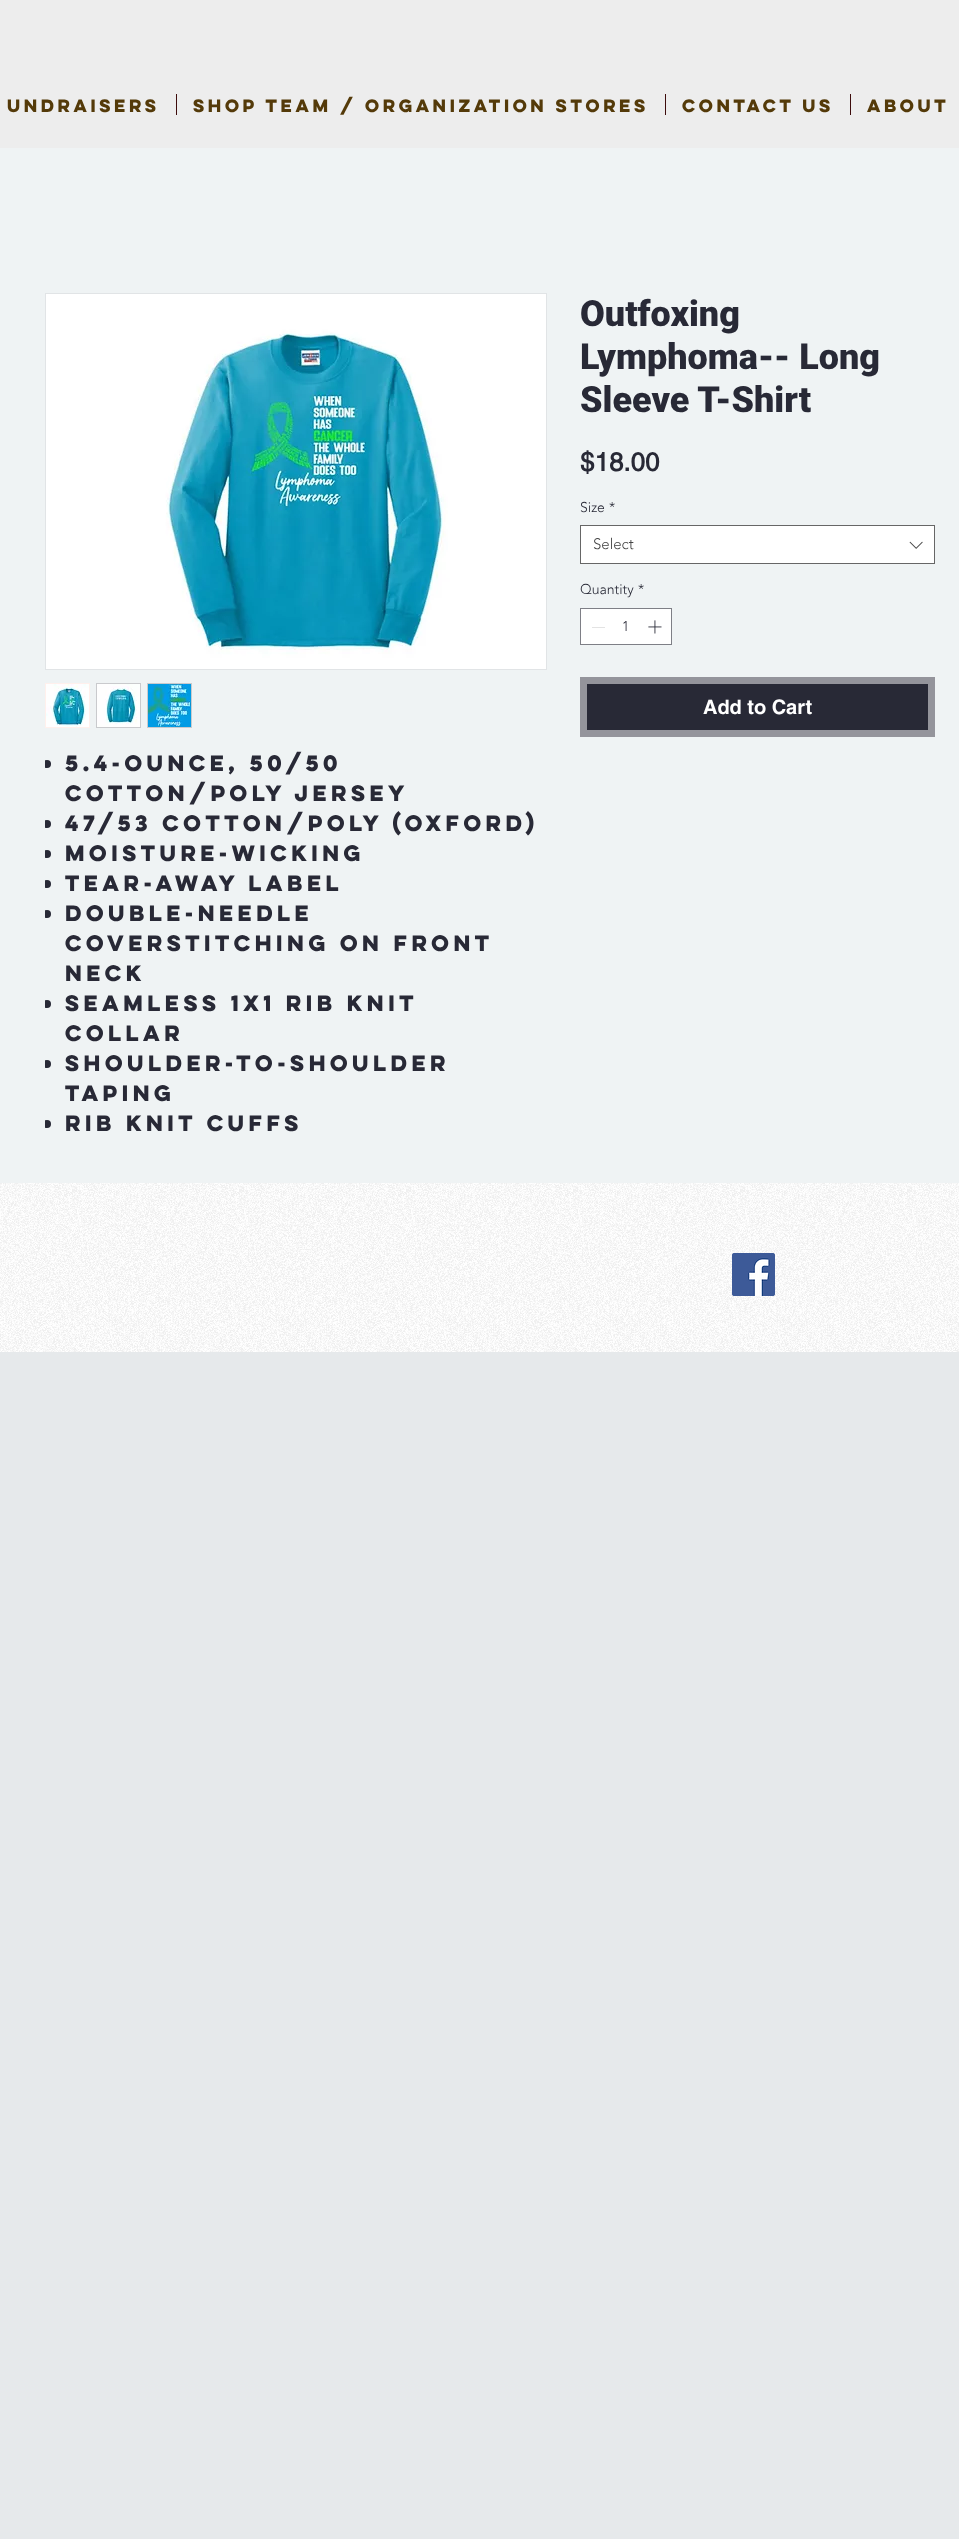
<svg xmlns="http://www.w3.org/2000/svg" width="959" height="2539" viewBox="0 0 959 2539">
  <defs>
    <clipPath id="clip1"><rect x="45" y="748" width="500" height="390"/></clipPath>
  </defs>
  <rect width="100%" height="100%" fill="#e6e9eb"/>
  <rect x="0" y="0" width="959" height="148" fill="#ededed"/>
  <text x="7" y="112" font-family="'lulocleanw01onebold'" font-size="16" font-weight="bold" fill="#543a09">UNDRAISERS</text>
  <rect x="176" y="94" width="1" height="21" fill="#3e0c0c"/>
  <text x="193" y="112" font-family="'lulocleanw01onebold'" font-size="16" font-weight="bold" fill="#543a09">SHOP TEAM / ORGANIZATION STORES</text>
  <rect x="665" y="94" width="1" height="21" fill="#3e0c0c"/>
  <text x="682" y="112" font-family="'lulocleanw01onebold'" font-size="16" font-weight="bold" fill="#543a09">CONTACT US</text>
  <rect x="850" y="94" width="1" height="21" fill="#3e0c0c"/>
  <text x="867" y="112" font-family="'lulocleanw01onebold'" font-size="16" font-weight="bold" fill="#543a09">ABOUT</text>
  <rect x="0" y="148" width="959" height="1035" fill="#eff3f4"/>
  <text x="580" y="326" font-family="Roboto" font-size="36" font-weight="900" fill="#282936">Outfoxing</text>
  <text x="580" y="369" font-family="Roboto" font-size="36" font-weight="900" fill="#282936">Lymphoma-- Long</text>
  <text x="580" y="412" font-family="Roboto" font-size="36" font-weight="900" fill="#282936">Sleeve T-Shirt</text>
  <text x="580" y="471" font-family="helvetica" font-size="26" font-weight="bold" fill="#282936">$18.00</text>
  <text x="580" y="512" font-family="'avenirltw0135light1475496'" font-size="14" font-weight="300" fill="#282936">Size</text>
  <text x="609" y="512" font-family="'avenirltw0135light1475496'" font-size="14" font-weight="300" fill="#282936">*</text>
  <rect x="580.5" y="525.5" width="354" height="38" fill="#ffffff" stroke="#666666"/>
  <text x="593" y="549" font-family="'avenirltw0135light1475496'" font-size="15" font-weight="300" fill="#444444">Select</text>
  <image x="909" y="541" width="14" height="8" href="img1.png"/>
  <text x="580" y="594" font-family="'avenirltw0135light1475496'" font-size="14" font-weight="300" fill="#282936">Quantity</text>
  <text x="638" y="594" font-family="'avenirltw0135light1475496'" font-size="14" font-weight="300" fill="#282936">*</text>
  <rect x="580.5" y="608.5" width="91" height="36" fill="#ffffff" stroke="#7e7f86"/>
  <rect x="592" y="627" width="13" height="1" fill="#e3e3e3"/>
  <text x="622" y="631" font-family="'avenirltw0135light1475496'" font-size="14" font-weight="300" fill="#282936">1</text>
  <image x="648" y="620" width="14" height="14" href="img2.png"/>
  <rect x="583.5" y="680.5" width="348" height="53" fill="#282936" stroke="#94949b" stroke-width="7"/>
  <text x="703" y="714" font-family="'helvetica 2'" font-size="20" font-weight="bold" fill="#ffffff">Add to Cart</text>
  <rect x="45.5" y="293.5" width="501" height="376" fill="none" stroke="#e1e4e6"/>
  <image x="46" y="294" width="500" height="375" href="img3.png"/>
  <rect x="45.5" y="683.5" width="44" height="44" fill="none" stroke="#fff0ec"/>
  <image x="46" y="684" width="43" height="43" href="img4.png"/>
  <rect x="96" y="683" width="45" height="45" fill="#c9cacd"/>
  <image x="97" y="684" width="43" height="43" href="img5.png"/>
  <rect x="147" y="683" width="45" height="45" fill="#c9cacd"/>
  <image x="148" y="684" width="43" height="43" href="img6.png"/>
  <g clip-path="url(#clip1)">
    <circle cx="47" cy="764" r="4" fill="#282936"/>
  </g>
  <text x="65" y="771" font-family="'lulocleanw01onebold'" font-size="20" font-weight="bold" fill="#282936">5.4-ounce, 50/50</text>
  <text x="65" y="801" font-family="'lulocleanw01onebold'" font-size="20" font-weight="bold" fill="#282936">cotton/poly jersey</text>
  <g clip-path="url(#clip1)">
    <circle cx="47" cy="824" r="4" fill="#282936"/>
  </g>
  <text x="65" y="831" font-family="'lulocleanw01onebold'" font-size="20" font-weight="bold" fill="#282936">47/53 cotton/poly (Oxford)</text>
  <g clip-path="url(#clip1)">
    <circle cx="47" cy="854" r="4" fill="#282936"/>
  </g>
  <text x="65" y="861" font-family="'lulocleanw01onebold'" font-size="20" font-weight="bold" fill="#282936">Moisture-wicking</text>
  <g clip-path="url(#clip1)">
    <circle cx="47" cy="884" r="4" fill="#282936"/>
  </g>
  <text x="65" y="891" font-family="'lulocleanw01onebold'" font-size="20" font-weight="bold" fill="#282936">Tear-away label</text>
  <g clip-path="url(#clip1)">
    <circle cx="47" cy="914" r="4" fill="#282936"/>
  </g>
  <text x="65" y="921" font-family="'lulocleanw01onebold'" font-size="20" font-weight="bold" fill="#282936">Double-needle</text>
  <text x="65" y="951" font-family="'lulocleanw01onebold'" font-size="20" font-weight="bold" fill="#282936">coverstitching on front</text>
  <text x="65" y="981" font-family="'lulocleanw01onebold'" font-size="20" font-weight="bold" fill="#282936">neck</text>
  <g clip-path="url(#clip1)">
    <circle cx="47" cy="1004" r="4" fill="#282936"/>
  </g>
  <text x="65" y="1011" font-family="'lulocleanw01onebold'" font-size="20" font-weight="bold" fill="#282936">Seamless 1x1 rib knit</text>
  <text x="65" y="1041" font-family="'lulocleanw01onebold'" font-size="20" font-weight="bold" fill="#282936">collar</text>
  <g clip-path="url(#clip1)">
    <circle cx="47" cy="1064" r="4" fill="#282936"/>
  </g>
  <text x="65" y="1071" font-family="'lulocleanw01onebold'" font-size="20" font-weight="bold" fill="#282936">Shoulder-to-shoulder</text>
  <text x="65" y="1101" font-family="'lulocleanw01onebold'" font-size="20" font-weight="bold" fill="#282936">taping</text>
  <g clip-path="url(#clip1)">
    <circle cx="47" cy="1124" r="4" fill="#282936"/>
  </g>
  <text x="65" y="1131" font-family="'lulocleanw01onebold'" font-size="20" font-weight="bold" fill="#282936">Rib knit cuffs</text>
  <rect x="0" y="1183" width="959" height="169" fill="#ffffff"/>
  <image x="0" y="1183" width="959" height="169" href="img7.png"/>
  <image x="732" y="1253" width="43" height="43" href="img8.png"/>
</svg>
